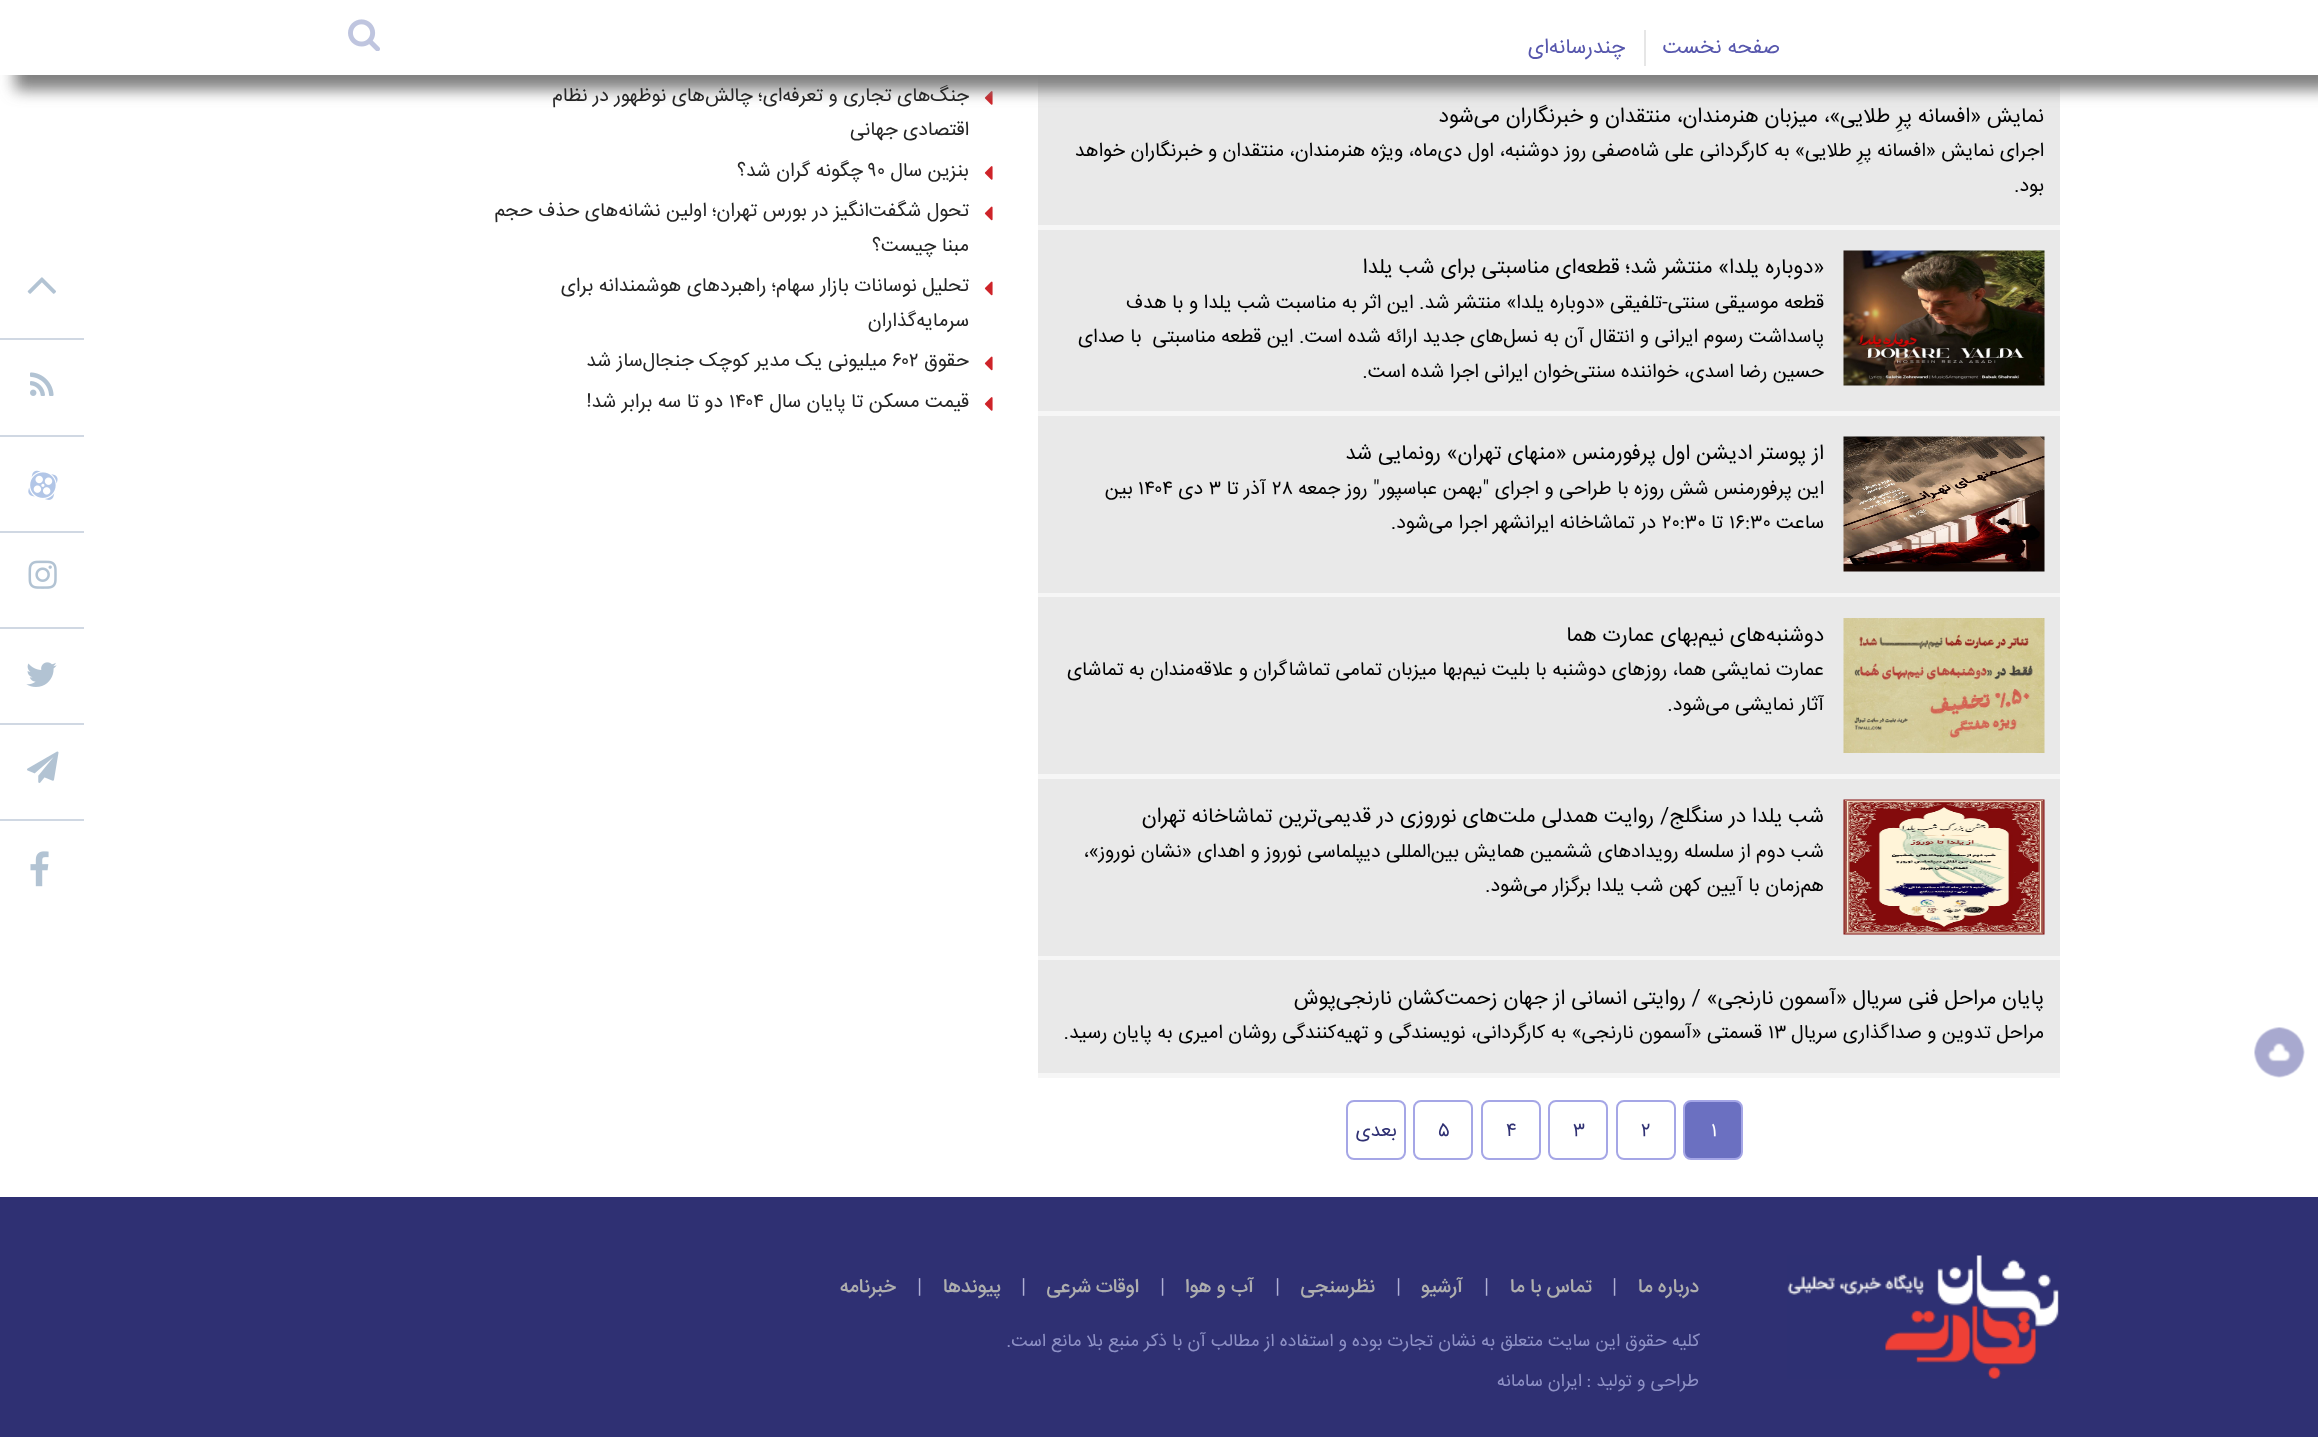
<svg xmlns="http://www.w3.org/2000/svg" width="2318" height="1437" viewBox="0 0 2318 1437">
  <defs>
    <filter id="blur1" x="-50%" y="-200%" width="200%" height="500%"><feGaussianBlur stdDeviation="7.5"/></filter>
  </defs>
  <rect width="100%" height="100%" fill="#ffffff"/>
  <rect x="1038" y="75" width="1022" height="150" fill="#e9e9e9"/>
  <image x="984" y="91" width="9" height="14" href="img6.png"/>
  <rect x="15" y="15" width="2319" height="75" fill="#808080" filter="url(#blur1)"/>
  <rect x="0" y="0" width="2318" height="75" fill="#ffffff"/>
  <text x="1780" y="53" font-family="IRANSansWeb" font-size="21" direction="rtl" fill="#5757ad">صفحه نخست</text>
  <rect x="1644" y="30" width="2" height="36" fill="#e6e6e6"/>
  <text x="1625" y="53" font-family="IRANSansWeb" font-size="21" direction="rtl" fill="#5757ad">چندرسانه‌ای</text>
  <image x="348" y="19" width="32" height="32" href="img1.png"/>
  <rect x="1038" y="225" width="1022" height="5" fill="#f6f6f6"/>
  <text x="2044" y="122" font-family="IRANSansWeb" font-size="21" direction="rtl" fill="#000000">نمایش «افسانه پرِ طلایی»، میزبان هنرمندان، منتقدان و خبرنگاران می‌شود</text>
  <text x="2044" y="156" font-family="IRANSansWeb" font-size="19.5" direction="rtl" fill="#000000">اجرای نمایش «افسانه پرِ طلایی» به کارگردانی علی شاه‌صفی روز دوشنبه، اول دی‌ماه، ویژه هنرمندان، منتقدان و خبرنگاران خواهد</text>
  <text x="2044" y="191" font-family="IRANSansWeb" font-size="19.5" direction="rtl" fill="#000000">بود.</text>
  <rect x="1038" y="230" width="1022" height="181" fill="#e9e9e9"/>
  <rect x="1038" y="411" width="1022" height="5" fill="#f6f6f6"/>
  <image x="1843" y="250" width="202" height="136" href="img2.png"/>
  <text x="1824" y="273" font-family="IRANSansWeb" font-size="21" direction="rtl" fill="#000000">«دوباره یلدا» منتشر شد؛ قطعه‌ای مناسبتی برای شب یلدا</text>
  <text x="1824" y="308" font-family="IRANSansWeb" font-size="19.5" direction="rtl" fill="#000000">قطعه موسیقی سنتی-تلفیقی «دوباره یلدا» منتشر شد. این اثر به مناسبت شب یلدا و با هدف</text>
  <text x="1824" y="342" font-family="IRANSansWeb" font-size="19.5" direction="rtl" fill="#000000" xml:space="preserve">پاسداشت رسوم ایرانی و انتقال آن به نسل‌های جدید ارائه شده است. این قطعه مناسبتی  با صدای</text>
  <text x="1824" y="377" font-family="IRANSansWeb" font-size="19.5" direction="rtl" fill="#000000">حسین رضا اسدی، خواننده سنتی‌خوان ایرانی اجرا شده است.</text>
  <rect x="1038" y="416" width="1022" height="177" fill="#e9e9e9"/>
  <rect x="1038" y="593" width="1022" height="4" fill="#f6f6f6"/>
  <image x="1843" y="436" width="202" height="136" href="img3.png"/>
  <text x="1824" y="459" font-family="IRANSansWeb" font-size="21" direction="rtl" fill="#000000">از پوستر ادیشن اول پرفورمنس «منهای تهران» رونمایی شد</text>
  <text x="1824" y="494" font-family="IRANSansWeb" font-size="19.5" direction="rtl" fill="#000000">این پرفورمنس شش روزه با طراحی و اجرای "بهمن عباسپور" روز جمعه</text>
  <text x="1272" y="494" font-family="IRANSansWeb" font-size="19.5" fill="#000000">۲۸</text>
  <text x="1266" y="494" font-family="IRANSansWeb" font-size="19.5" direction="rtl" fill="#000000">آذر تا</text>
  <text x="1209" y="494" font-family="IRANSansWeb" font-size="19.5" fill="#000000">۳</text>
  <text x="1203" y="494" font-family="IRANSansWeb" font-size="19.5" direction="rtl" fill="#000000">دی</text>
  <text x="1138" y="494" font-family="IRANSansWeb" font-size="19.5" fill="#000000">۱۴۰۴</text>
  <text x="1133" y="494" font-family="IRANSansWeb" font-size="19.5" direction="rtl" fill="#000000">بین</text>
  <text x="1824" y="528" font-family="IRANSansWeb" font-size="19.5" direction="rtl" fill="#000000">ساعت</text>
  <text x="1729" y="528" font-family="IRANSansWeb" font-size="19.5" fill="#000000">۱۶:۳۰</text>
  <text x="1723" y="528" font-family="IRANSansWeb" font-size="19.5" direction="rtl" fill="#000000">تا</text>
  <text x="1662" y="528" font-family="IRANSansWeb" font-size="19.5" fill="#000000">۲۰:۳۰</text>
  <text x="1656" y="528" font-family="IRANSansWeb" font-size="19.5" direction="rtl" fill="#000000">در تماشاخانه ایرانشهر اجرا می‌شود.</text>
  <rect x="1038" y="597" width="1022" height="177" fill="#e9e9e9"/>
  <rect x="1038" y="774" width="1022" height="5" fill="#f6f6f6"/>
  <image x="1843" y="618" width="202" height="135" href="img4.png"/>
  <text x="1824" y="641" font-family="IRANSansWeb" font-size="21" direction="rtl" fill="#000000">دوشنبه‌های نیم‌بهای عمارت هما</text>
  <text x="1824" y="675" font-family="IRANSansWeb" font-size="19.5" direction="rtl" fill="#000000">عمارت نمایشی هما، روزهای دوشنبه با بلیت نیم‌بها میزبان تمامی تماشاگران و علاقه‌مندان به تماشای</text>
  <text x="1824" y="710" font-family="IRANSansWeb" font-size="19.5" direction="rtl" fill="#000000">آثار نمایشی می‌شود.</text>
  <rect x="1038" y="779" width="1022" height="177" fill="#e9e9e9"/>
  <rect x="1038" y="956" width="1022" height="4" fill="#f6f6f6"/>
  <image x="1843" y="799" width="202" height="136" href="img5.png"/>
  <text x="1824" y="822" font-family="IRANSansWeb" font-size="21" direction="rtl" fill="#000000">شب یلدا در سنگلج/ روایت همدلی ملت‌های نوروزی در قدیمی‌ترین تماشاخانه تهران</text>
  <text x="1824" y="857" font-family="IRANSansWeb" font-size="19.5" direction="rtl" fill="#000000">شب دوم از سلسله رویداد‌های ششمین همایش بین‌المللی دیپلماسی نوروز و اهدای «نشان نوروز»،</text>
  <text x="1824" y="891" font-family="IRANSansWeb" font-size="19.5" direction="rtl" fill="#000000">هم‌زمان با آیین کهن شب یلدا برگزار می‌شود.</text>
  <rect x="1038" y="960" width="1022" height="113" fill="#e9e9e9"/>
  <rect x="1038" y="1073" width="1022" height="5" fill="#f6f6f6"/>
  <text x="2044" y="1004" font-family="IRANSansWeb" font-size="21" direction="rtl" fill="#000000">پایان مراحل فنی سریال «آسمون نارنجی» / روایتی انسانی از جهان زحمت‌کشان نارنجی‌پوش</text>
  <text x="2044" y="1038" font-family="IRANSansWeb" font-size="19.5" direction="rtl" fill="#000000">مراحل تدوین و صداگذاری سریال</text>
  <text x="1768" y="1038" font-family="IRANSansWeb" font-size="19.5" fill="#000000">۱۳</text>
  <text x="1762" y="1038" font-family="IRANSansWeb" font-size="19.5" direction="rtl" fill="#000000">قسمتی «آسمون نارنجی» به کارگردانی، نویسندگی و تهیه‌کنندگی روشان امیری به پایان رسید.</text>
  <rect x="1684" y="1101" width="58" height="58" rx="7" fill="#6b70c1" stroke="#a5a6e6" stroke-width="2"/>
  <text x="1711" y="1136" font-family="IRANSansWeb" font-size="19.5" fill="#ffffff">۱</text>
  <rect x="1617" y="1101" width="58" height="58" rx="7" fill="none" stroke="#a5a6e6" stroke-width="2"/>
  <text x="1641" y="1136" font-family="IRANSansWeb" font-size="19.5" fill="#2f3073">۲</text>
  <rect x="1549" y="1101" width="58" height="58" rx="7" fill="none" stroke="#a5a6e6" stroke-width="2"/>
  <text x="1573" y="1136" font-family="IRANSansWeb" font-size="19.5" fill="#2f3073">۳</text>
  <rect x="1482" y="1101" width="58" height="58" rx="7" fill="none" stroke="#a5a6e6" stroke-width="2"/>
  <text x="1506" y="1136" font-family="IRANSansWeb" font-size="19.5" fill="#2f3073">۴</text>
  <rect x="1414" y="1101" width="58" height="58" rx="7" fill="none" stroke="#a5a6e6" stroke-width="2"/>
  <text x="1438" y="1136" font-family="IRANSansWeb" font-size="19.5" fill="#2f3073">۵</text>
  <rect x="1347" y="1101" width="58" height="58" rx="7" fill="none" stroke="#a5a6e6" stroke-width="2"/>
  <text x="1397" y="1136" font-family="IRANSansWeb" font-size="19.5" direction="rtl" fill="#2f3073">بعدی</text>
  <text x="969" y="101" font-family="IRANSansWeb" font-size="19.5" direction="rtl" fill="#252525">جنگ‌های تجاری و تعرفه‌ای؛ چالش‌های نوظهور در نظام</text>
  <text x="969" y="135" font-family="IRANSansWeb" font-size="19.5" direction="rtl" fill="#252525">اقتصادی جهانی</text>
  <image x="984" y="166" width="9" height="14" href="img6.png"/>
  <text x="969" y="176" font-family="IRANSansWeb" font-size="19.5" direction="rtl" fill="#252525">بنزین سال</text>
  <text x="869" y="176" font-family="IRANSansWeb" font-size="19.5" fill="#252525">۹۰</text>
  <text x="863" y="176" font-family="IRANSansWeb" font-size="19.5" direction="rtl" fill="#252525">چگونه گران شد؟</text>
  <image x="984" y="206" width="9" height="15" href="img7.png"/>
  <text x="969" y="216" font-family="IRANSansWeb" font-size="19.5" direction="rtl" fill="#252525">تحول شگفت‌انگیز در بورس تهران؛ اولین نشانه‌های حذف حجم</text>
  <text x="969" y="251" font-family="IRANSansWeb" font-size="19.5" direction="rtl" fill="#252525">مبنا چیست؟</text>
  <image x="984" y="281" width="9" height="15" href="img7.png"/>
  <text x="969" y="291" font-family="IRANSansWeb" font-size="19.5" direction="rtl" fill="#252525">تحلیل نوسانات بازار سهام؛ راهبرد‌های هوشمندانه برای</text>
  <text x="969" y="326" font-family="IRANSansWeb" font-size="19.5" direction="rtl" fill="#252525">سرمایه‌گذاران</text>
  <image x="984" y="356" width="9" height="15" href="img7.png"/>
  <text x="969" y="366" font-family="IRANSansWeb" font-size="19.5" direction="rtl" fill="#252525">حقوق</text>
  <text x="892" y="366" font-family="IRANSansWeb" font-size="19.5" fill="#252525">۶۰۲</text>
  <text x="887" y="366" font-family="IRANSansWeb" font-size="19.5" direction="rtl" fill="#252525">میلیونی یک مدیر کوچک جنجال‌ساز شد</text>
  <image x="984" y="397" width="9" height="14" href="img6.png"/>
  <text x="969" y="407" font-family="IRANSansWeb" font-size="19.5" direction="rtl" fill="#252525">قیمت مسکن تا پایان سال</text>
  <text x="729" y="407" font-family="IRANSansWeb" font-size="19.5" fill="#252525">۱۴۰۴</text>
  <text x="723" y="407" font-family="IRANSansWeb" font-size="19.5" direction="rtl" fill="#252525">دو تا سه برابر شد!</text>
  <rect x="0" y="338" width="84" height="2" fill="#d0d8e3"/>
  <image x="27" y="277" width="29" height="17" href="img8.png"/>
  <rect x="0" y="435" width="84" height="2" fill="#d0d8e3"/>
  <image x="30" y="372" width="24" height="24" href="img9.png"/>
  <rect x="0" y="531" width="84" height="2" fill="#d0d8e3"/>
  <image x="28" y="470" width="30" height="30" href="img10.png"/>
  <rect x="0" y="627" width="84" height="2" fill="#d0d8e3"/>
  <image x="28" y="560" width="29" height="29" href="img11.png"/>
  <rect x="0" y="723" width="84" height="2" fill="#d0d8e3"/>
  <image x="26" y="662" width="31" height="25" href="img12.png"/>
  <rect x="0" y="819" width="84" height="2" fill="#d0d8e3"/>
  <image x="27" y="751" width="32" height="32" href="img13.png"/>
  <image x="30" y="851" width="19" height="36" href="img14.png"/>
  <image x="2254" y="1027" width="51" height="51" href="img15.png"/>
  <rect x="0" y="1197" width="2318" height="240" fill="#2f3073"/>
  <image x="1787" y="1255" width="272" height="124" href="img16.png"/>
  <text x="1699" y="1292" font-family="IRANSansWeb" font-size="19.5" font-weight="500" direction="rtl" fill="#aeaeae">درباره ما</text>
  <text x="1612" y="1292" font-family="IRANSansWeb" font-size="19.5" fill="#afafd5">|</text>
  <text x="1592" y="1292" font-family="IRANSansWeb" font-size="19.5" font-weight="500" direction="rtl" fill="#aeaeae">تماس با ما</text>
  <text x="1484" y="1292" font-family="IRANSansWeb" font-size="19.5" fill="#afafd5">|</text>
  <text x="1463" y="1292" font-family="IRANSansWeb" font-size="19.5" font-weight="500" direction="rtl" fill="#aeaeae">آرشیو</text>
  <text x="1396" y="1292" font-family="IRANSansWeb" font-size="19.5" fill="#afafd5">|</text>
  <text x="1375" y="1292" font-family="IRANSansWeb" font-size="19.5" font-weight="500" direction="rtl" fill="#aeaeae">نظرسنجی</text>
  <text x="1275" y="1292" font-family="IRANSansWeb" font-size="19.5" fill="#afafd5">|</text>
  <text x="1254" y="1292" font-family="IRANSansWeb" font-size="19.5" font-weight="500" direction="rtl" fill="#aeaeae">آب و هوا</text>
  <text x="1160" y="1292" font-family="IRANSansWeb" font-size="19.5" fill="#afafd5">|</text>
  <text x="1139" y="1292" font-family="IRANSansWeb" font-size="19.5" font-weight="500" direction="rtl" fill="#aeaeae">اوقات شرعی</text>
  <text x="1021" y="1292" font-family="IRANSansWeb" font-size="19.5" fill="#afafd5">|</text>
  <text x="1001" y="1292" font-family="IRANSansWeb" font-size="19.5" font-weight="500" direction="rtl" fill="#aeaeae">پیوندها</text>
  <text x="917" y="1292" font-family="IRANSansWeb" font-size="19.5" fill="#afafd5">|</text>
  <text x="896" y="1292" font-family="IRANSansWeb" font-size="19.5" font-weight="500" direction="rtl" fill="#aeaeae">خبرنامه</text>
  <text x="1700" y="1346" font-family="IRANSansWeb" font-size="18" direction="rtl" fill="#8e91c6">کلیه حقوق این سایت متعلق به نشان تجارت بوده و استفاده از مطالب آن با ذکر منبع بلا مانع است.</text>
  <text x="1699" y="1386" font-family="IRANSansWeb" font-size="18" direction="rtl" fill="#8e91c6">طراحی و تولید :</text>
  <text x="1582" y="1386" font-family="IRANSansWeb" font-size="18" direction="rtl" fill="#8e91c6">ایران سامانه</text>
</svg>
